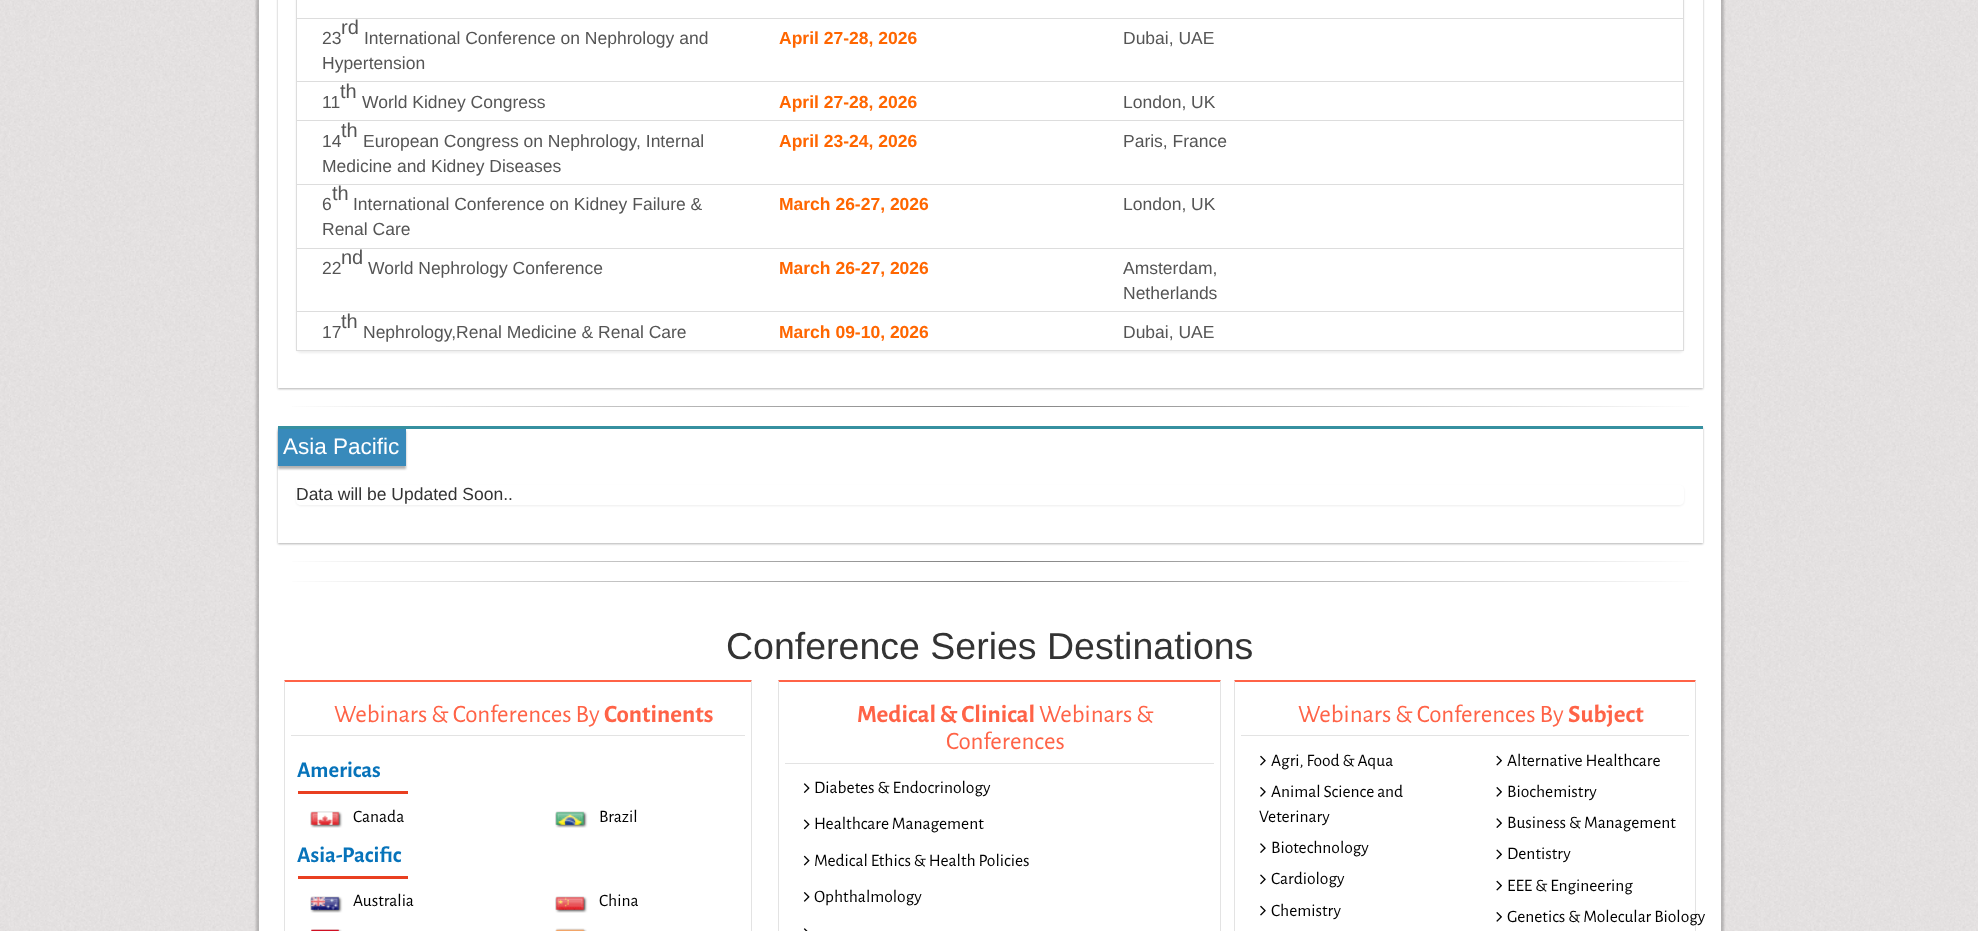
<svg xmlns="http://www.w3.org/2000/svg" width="1978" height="931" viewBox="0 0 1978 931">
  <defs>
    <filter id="blur1" x="-50%" y="-200%" width="200%" height="500%"><feGaussianBlur stdDeviation="1"/></filter>
    <clipPath id="clip1"><path d="M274 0H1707V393H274ZM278-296H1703V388H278Z" clip-rule="evenodd"/></clipPath>
    <linearGradient id="g1" gradientUnits="userSpaceOnUse" x1="278" y1="407" x2="1703" y2="407"><stop offset="0" stop-color="#ffffff"/><stop offset="0.5" stop-color="#808080"/><stop offset="1" stop-color="#ffffff"/></linearGradient>
    <clipPath id="clip2"><path d="M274 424H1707V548H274ZM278 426H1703V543H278Z" clip-rule="evenodd"/></clipPath>
    <clipPath id="clip3"><path d="M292 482H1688V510H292ZM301 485H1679C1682 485 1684 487 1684 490V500C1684 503 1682 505 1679 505H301C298 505 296 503 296 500V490C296 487 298 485 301 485Z" clip-rule="evenodd"/></clipPath>
    <linearGradient id="g2" gradientUnits="userSpaceOnUse" x1="278" y1="562" x2="1703" y2="562"><stop offset="0" stop-color="#ffffff"/><stop offset="0.5" stop-color="#808080"/><stop offset="1" stop-color="#ffffff"/></linearGradient>
    <linearGradient id="g3" gradientUnits="userSpaceOnUse" x1="278" y1="582" x2="1703" y2="582"><stop offset="0" stop-color="#ffffff"/><stop offset="0.5" stop-color="#808080"/><stop offset="1" stop-color="#ffffff"/></linearGradient>
  </defs>
  <rect width="100%" height="100%" fill="#e8e5e5"/>
  <image x="0" y="0" width="1978" height="931" href="img1.png"/>
  <rect x="256" y="-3" width="1468" height="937" fill="#000000" fill-opacity="0.2" filter="url(#blur1)"/>
  <rect x="259" y="0" width="1462" height="931" fill="#ffffff"/>
  <g clip-path="url(#clip1)">
    <rect x="278" y="-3" width="1425" height="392" fill="#000000" fill-opacity="0.3" filter="url(#blur1)"/>
  </g>
  <rect x="296" y="-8" width="1388" height="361" rx="5" fill="#000000" fill-opacity="0.07" filter="url(#blur1)"/>
  <rect x="296.5" y="-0.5" width="1387" height="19" fill="#ffffff" stroke="#dddddd"/>
  <rect x="297" y="19" width="1386" height="62" fill="#ffffff"/>
  <rect x="296.5" y="18.5" width="1387" height="64" fill="none" stroke="#dddddd"/>
  <text x="341" y="34" font-family="Liberation Sans" font-size="20" fill="#555555">rd</text>
  <text x="322" y="44" font-family="Liberation Sans" font-size="17.5" fill="#555555">23</text>
  <text x="364" y="44" font-family="Liberation Sans" font-size="17.5" fill="#555555">International Conference on Nephrology and</text>
  <text x="322" y="69" font-family="Liberation Sans" font-size="17.5" fill="#555555">Hypertension</text>
  <text x="779" y="44" font-family="Liberation Sans" font-size="17.5" font-weight="bold" fill="#ff6600">April 27-28, 2026</text>
  <text x="1123" y="44" font-family="Liberation Sans" font-size="17.5" fill="#555555">Dubai, UAE</text>
  <rect x="296.5" y="81.5" width="1387" height="39" fill="#ffffff" stroke="#dddddd"/>
  <text x="340" y="98" font-family="Liberation Sans" font-size="20" fill="#555555">th</text>
  <text x="322" y="108" font-family="Liberation Sans" font-size="17.5" fill="#555555">11</text>
  <text x="362" y="108" font-family="Liberation Sans" font-size="17.5" fill="#555555">World Kidney Congress</text>
  <text x="779" y="108" font-family="Liberation Sans" font-size="17.5" font-weight="bold" fill="#ff6600">April 27-28, 2026</text>
  <text x="1123" y="108" font-family="Liberation Sans" font-size="17.5" fill="#555555">London, UK</text>
  <rect x="296.5" y="120.5" width="1387" height="64" fill="#ffffff" stroke="#dddddd"/>
  <text x="341" y="137" font-family="Liberation Sans" font-size="20" fill="#555555">th</text>
  <text x="322" y="147" font-family="Liberation Sans" font-size="17.5" fill="#555555">14</text>
  <text x="363" y="147" font-family="Liberation Sans" font-size="17.5" fill="#555555">European Congress on Nephrology, Internal</text>
  <text x="322" y="172" font-family="Liberation Sans" font-size="17.5" fill="#555555">Medicine and Kidney Diseases</text>
  <text x="779" y="147" font-family="Liberation Sans" font-size="17.5" font-weight="bold" fill="#ff6600">April 23-24, 2026</text>
  <text x="1123" y="147" font-family="Liberation Sans" font-size="17.5" fill="#555555">Paris, France</text>
  <rect x="296.5" y="184.5" width="1387" height="64" fill="#ffffff" stroke="#dddddd"/>
  <text x="332" y="200" font-family="Liberation Sans" font-size="20" fill="#555555">th</text>
  <text x="322" y="210" font-family="Liberation Sans" font-size="17.5" fill="#555555">6</text>
  <text x="353" y="210" font-family="Liberation Sans" font-size="17.5" fill="#555555">International Conference on Kidney Failure &amp;</text>
  <text x="322" y="235" font-family="Liberation Sans" font-size="17.5" fill="#555555">Renal Care</text>
  <text x="779" y="210" font-family="Liberation Sans" font-size="17.5" font-weight="bold" fill="#ff6600">March 26-27, 2026</text>
  <text x="1123" y="210" font-family="Liberation Sans" font-size="17.5" fill="#555555">London, UK</text>
  <rect x="297" y="249" width="1386" height="62" fill="#ffffff"/>
  <rect x="296.5" y="248.5" width="1387" height="64" fill="none" stroke="#dddddd"/>
  <text x="341" y="264" font-family="Liberation Sans" font-size="20" fill="#555555">nd</text>
  <text x="322" y="274" font-family="Liberation Sans" font-size="17.5" fill="#555555">22</text>
  <text x="368" y="274" font-family="Liberation Sans" font-size="17.5" fill="#555555">World Nephrology Conference</text>
  <text x="779" y="274" font-family="Liberation Sans" font-size="17.5" font-weight="bold" fill="#ff6600">March 26-27, 2026</text>
  <text x="1123" y="274" font-family="Liberation Sans" font-size="17.5" fill="#555555">Amsterdam,</text>
  <text x="1123" y="299" font-family="Liberation Sans" font-size="17.5" fill="#555555">Netherlands</text>
  <rect x="296.5" y="311.5" width="1387" height="39" fill="#ffffff" stroke="#dddddd"/>
  <text x="341" y="328" font-family="Liberation Sans" font-size="20" fill="#555555">th</text>
  <text x="322" y="338" font-family="Liberation Sans" font-size="17.5" fill="#555555">17</text>
  <text x="363" y="338" font-family="Liberation Sans" font-size="17.5" fill="#555555">Nephrology,Renal Medicine &amp; Renal Care</text>
  <text x="779" y="338" font-family="Liberation Sans" font-size="17.5" font-weight="bold" fill="#ff6600">March 09-10, 2026</text>
  <text x="1123" y="338" font-family="Liberation Sans" font-size="17.5" fill="#555555">Dubai, UAE</text>
  <rect x="292" y="406" width="1397" height="1" fill="url(#g1)"/>
  <g clip-path="url(#clip2)">
    <rect x="278" y="428" width="1425" height="116" fill="#000000" fill-opacity="0.3" filter="url(#blur1)"/>
  </g>
  <rect x="278" y="426" width="1425" height="3" fill="#3690a0"/>
  <rect x="278" y="431" width="128" height="38" fill="#000000" fill-opacity="0.3" filter="url(#blur1)"/>
  <rect x="278" y="429" width="128" height="37" fill="#388abb"/>
  <text x="283" y="454" font-family="Liberation Sans" font-size="22.5" fill="#ffffff">Asia Pacific</text>
  <g clip-path="url(#clip3)">
    <rect x="296" y="486" width="1388" height="20" rx="5" fill="#000000" fill-opacity="0.07" filter="url(#blur1)"/>
  </g>
  <text x="296" y="500" font-family="Liberation Sans" font-size="17.5" fill="#333333">Data will be Updated Soon..</text>
  <rect x="292" y="561" width="1397" height="1" fill="url(#g2)"/>
  <rect x="292" y="581" width="1397" height="1" fill="url(#g3)"/>
  <text x="726" y="659" font-family="Liberation Sans" font-size="37.5" fill="#333333">Conference Series Destinations</text>
  <path d="M284 680H752L751 682H285Z" fill="#ff6347"/>
  <path d="M752 680V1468L751 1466V682Z" fill="#e3e3e3"/>
  <path d="M284 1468V680L285 682V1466Z" fill="#e3e3e3"/>
  <rect x="291" y="735" width="454" height="1" fill="#e3e3e3"/>
  <text x="334" y="722" font-family="Alegreya Sans" font-size="25" fill="#ff6347">Webinars &amp; Conferences By</text>
  <text x="604" y="722" font-family="Alegreya Sans" font-size="25" font-weight="bold" fill="#ff6347">Continents</text>
  <rect x="298" y="791" width="110" height="3" fill="#e93f20"/>
  <text x="297" y="777" font-family="Alegreya Sans" font-size="22.5" font-weight="bold" fill="#0773ba">Americas</text>
  <image x="310" y="811" width="33" height="17" href="img2.png"/>
  <text x="353" y="822" font-family="Alegreya Sans" font-size="17.5" fill="#000000">Canada</text>
  <image x="555" y="811" width="33" height="17" href="img3.png"/>
  <text x="599" y="822" font-family="Alegreya Sans" font-size="17.5" fill="#000000">Brazil</text>
  <rect x="298" y="876" width="110" height="3" fill="#e93f20"/>
  <text x="297" y="862" font-family="Alegreya Sans" font-size="22.5" font-weight="bold" fill="#0773ba">Asia-Pacific</text>
  <image x="310" y="896" width="33" height="17" href="img4.png"/>
  <text x="353" y="906" font-family="Alegreya Sans" font-size="17.5" fill="#000000">Australia</text>
  <image x="555" y="896" width="33" height="17" href="img5.png"/>
  <text x="599" y="906" font-family="Alegreya Sans" font-size="17.5" fill="#000000">China</text>
  <image x="311" y="929" width="31" height="2" href="img6.png"/>
  <image x="555" y="928" width="32" height="3" href="img7.png"/>
  <path d="M778 680H1221L1220 682H779Z" fill="#ff6347"/>
  <path d="M1221 680V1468L1220 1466V682Z" fill="#e3e3e3"/>
  <path d="M778 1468V680L779 682V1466Z" fill="#e3e3e3"/>
  <rect x="785" y="763" width="429" height="1" fill="#e3e3e3"/>
  <text x="857" y="722" font-family="Alegreya Sans" font-size="25" font-weight="bold" fill="#ff6347">Medical &amp; Clinical</text>
  <text x="1039" y="722" font-family="Alegreya Sans" font-size="25" fill="#ff6347">Webinars &amp;</text>
  <text x="946" y="749" font-family="Alegreya Sans" font-size="25" fill="#ff6347">Conferences</text>
  <image x="803" y="783" width="7" height="10" href="img8.png"/>
  <text x="814" y="793" font-family="Alegreya Sans" font-size="17.5" fill="#000000">Diabetes &amp; Endocrinology</text>
  <image x="803" y="819" width="7" height="11" href="img9.png"/>
  <text x="814" y="829" font-family="Alegreya Sans" font-size="17.5" fill="#000000">Healthcare Management</text>
  <image x="803" y="855" width="7" height="11" href="img10.png"/>
  <text x="814" y="866" font-family="Alegreya Sans" font-size="17.5" fill="#000000">Medical Ethics &amp; Health Policies</text>
  <image x="803" y="892" width="7" height="10" href="img11.png"/>
  <text x="814" y="902" font-family="Alegreya Sans" font-size="17.5" fill="#000000">Ophthalmology</text>
  <image x="803" y="928" width="5" height="3" href="img12.png"/>
  <path d="M1234 680H1696L1695 682H1235Z" fill="#ff6347"/>
  <path d="M1696 680V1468L1695 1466V682Z" fill="#e3e3e3"/>
  <path d="M1234 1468V680L1235 682V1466Z" fill="#e3e3e3"/>
  <rect x="1241" y="735" width="448" height="1" fill="#e3e3e3"/>
  <text x="1298" y="722" font-family="Alegreya Sans" font-size="25" fill="#ff6347">Webinars &amp; Conferences By</text>
  <text x="1568" y="722" font-family="Alegreya Sans" font-size="25" font-weight="bold" fill="#ff6347">Subject</text>
  <image x="1260" y="755" width="6" height="11" href="img13.png"/>
  <text x="1271" y="766" font-family="Alegreya Sans" font-size="17.5" fill="#000000">Agri, Food &amp; Aqua</text>
  <image x="1260" y="787" width="6" height="10" href="img14.png"/>
  <text x="1271" y="797" font-family="Alegreya Sans" font-size="17.5" fill="#000000">Animal Science and</text>
  <text x="1259" y="822" font-family="Alegreya Sans" font-size="17.5" fill="#000000">Veterinary</text>
  <image x="1260" y="843" width="6" height="10" href="img15.png"/>
  <text x="1271" y="853" font-family="Alegreya Sans" font-size="17.5" fill="#000000">Biotechnology</text>
  <image x="1260" y="874" width="6" height="11" href="img16.png"/>
  <text x="1271" y="884" font-family="Alegreya Sans" font-size="17.5" fill="#000000">Cardiology</text>
  <image x="1260" y="905" width="6" height="11" href="img13.png"/>
  <text x="1271" y="916" font-family="Alegreya Sans" font-size="17.5" fill="#000000">Chemistry</text>
  <image x="1496" y="755" width="6" height="11" href="img17.png"/>
  <text x="1507" y="766" font-family="Alegreya Sans" font-size="17.5" fill="#000000">Alternative Healthcare</text>
  <image x="1496" y="787" width="6" height="10" href="img18.png"/>
  <text x="1507" y="797" font-family="Alegreya Sans" font-size="17.5" fill="#000000">Biochemistry</text>
  <image x="1496" y="818" width="6" height="10" href="img19.png"/>
  <text x="1507" y="828" font-family="Alegreya Sans" font-size="17.5" fill="#000000">Business &amp; Management</text>
  <image x="1496" y="849" width="6" height="11" href="img20.png"/>
  <text x="1507" y="859" font-family="Alegreya Sans" font-size="17.5" fill="#000000">Dentistry</text>
  <image x="1496" y="880" width="6" height="11" href="img17.png"/>
  <text x="1507" y="891" font-family="Alegreya Sans" font-size="17.5" fill="#000000">EEE &amp; Engineering</text>
  <image x="1496" y="912" width="6" height="10" href="img18.png"/>
  <text x="1507" y="922" font-family="Alegreya Sans" font-size="17.5" fill="#000000">Genetics &amp; Molecular Biology</text>
</svg>
